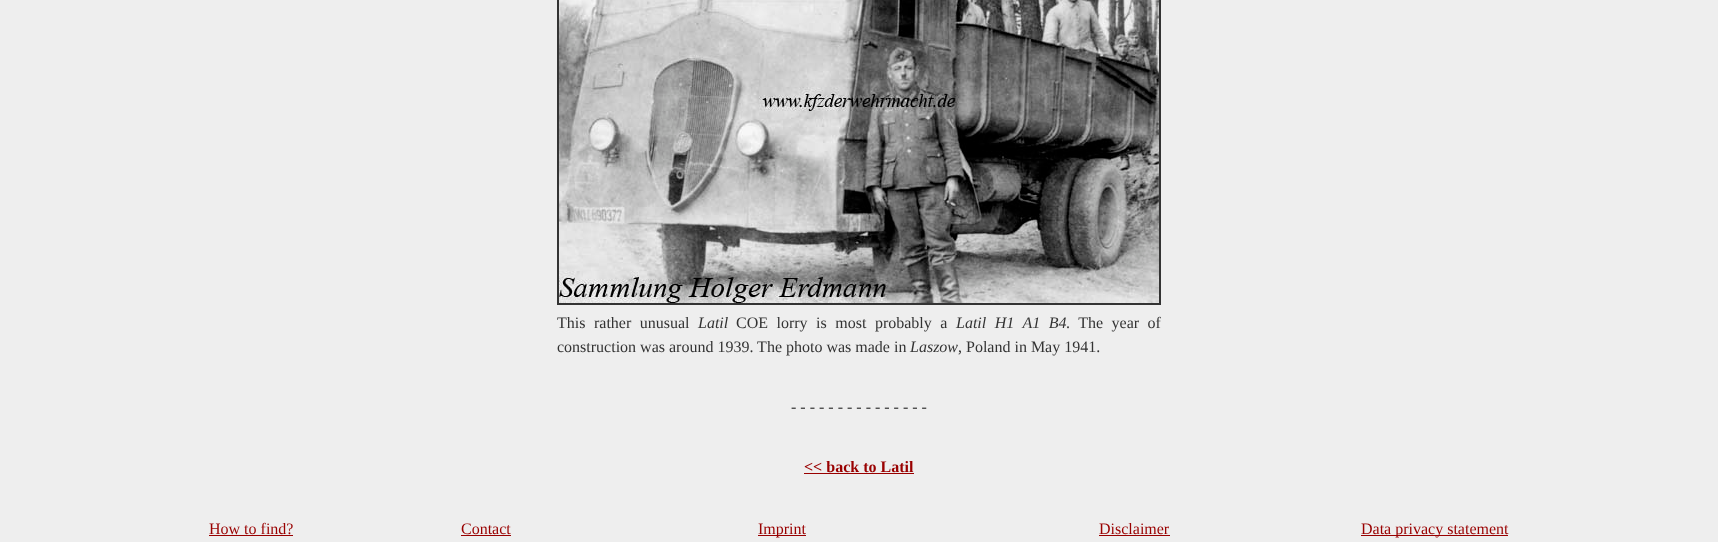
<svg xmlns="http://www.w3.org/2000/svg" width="1718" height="542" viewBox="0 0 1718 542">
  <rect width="100%" height="100%" fill="#eeeeee"/>
  <rect x="558" y="-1" width="602" height="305" fill="none" stroke="#333333" stroke-width="2"/>
  <image x="559" y="0" width="600" height="303" href="img1.png"/>
  <text x="557" y="328" word-spacing="4.5" font-family="Liberation Serif" font-size="16" fill="#333333">This rather unusual</text>
  <text x="698" y="328" font-family="Liberation Serif" font-size="16" font-style="italic" fill="#333333">Latil</text>
  <text x="736" y="328" word-spacing="4.5" font-family="Liberation Serif" font-size="16" fill="#333333">COE lorry is most probably a</text>
  <text x="956" y="328" word-spacing="4.5" font-family="Liberation Serif" font-size="16" font-style="italic" fill="#333333">Latil H1 A1 B4</text>
  <text x="1066" y="328" word-spacing="4.5" font-family="Liberation Serif" font-size="16" fill="#333333">. The year of</text>
  <text x="557" y="352" font-family="Liberation Serif" font-size="16" fill="#333333">construction was around 1939. The photo was made in</text>
  <text x="910" y="352" font-family="Liberation Serif" font-size="16" font-style="italic" fill="#333333">Laszow</text>
  <text x="958" y="352" font-family="Liberation Serif" font-size="16" fill="#333333">, Poland in May 1941.</text>
  <text x="791" y="412" font-family="Liberation Serif" font-size="16" fill="#333333">- - - - - - - - - - - - - - -</text>
  <text x="804" y="472" font-family="Liberation Serif" font-size="16" font-weight="bold" fill="#990000">&lt;&lt; back to Latil</text>
  <rect x="804" y="473" width="110" height="1" fill="#990000"/>
  <text x="209" y="534" font-family="Liberation Serif" font-size="16" fill="#990000">How to find?</text>
  <rect x="209" y="535" width="84" height="1" fill="#990000"/>
  <text x="461" y="534" font-family="Liberation Serif" font-size="16" fill="#990000">Contact</text>
  <rect x="461" y="535" width="50" height="1" fill="#990000"/>
  <rect x="758" y="535" width="48" height="1" fill="#990000"/>
  <text x="758" y="534" font-family="Liberation Serif" font-size="16" fill="#990000">Imprint</text>
  <text x="1099" y="534" font-family="Liberation Serif" font-size="16" fill="#990000">Disclaimer</text>
  <rect x="1099" y="535" width="71" height="1" fill="#990000"/>
  <rect x="1361" y="535" width="147" height="1" fill="#990000"/>
  <text x="1361" y="534" font-family="Liberation Serif" font-size="16" fill="#990000">Data privacy statement</text>
</svg>
